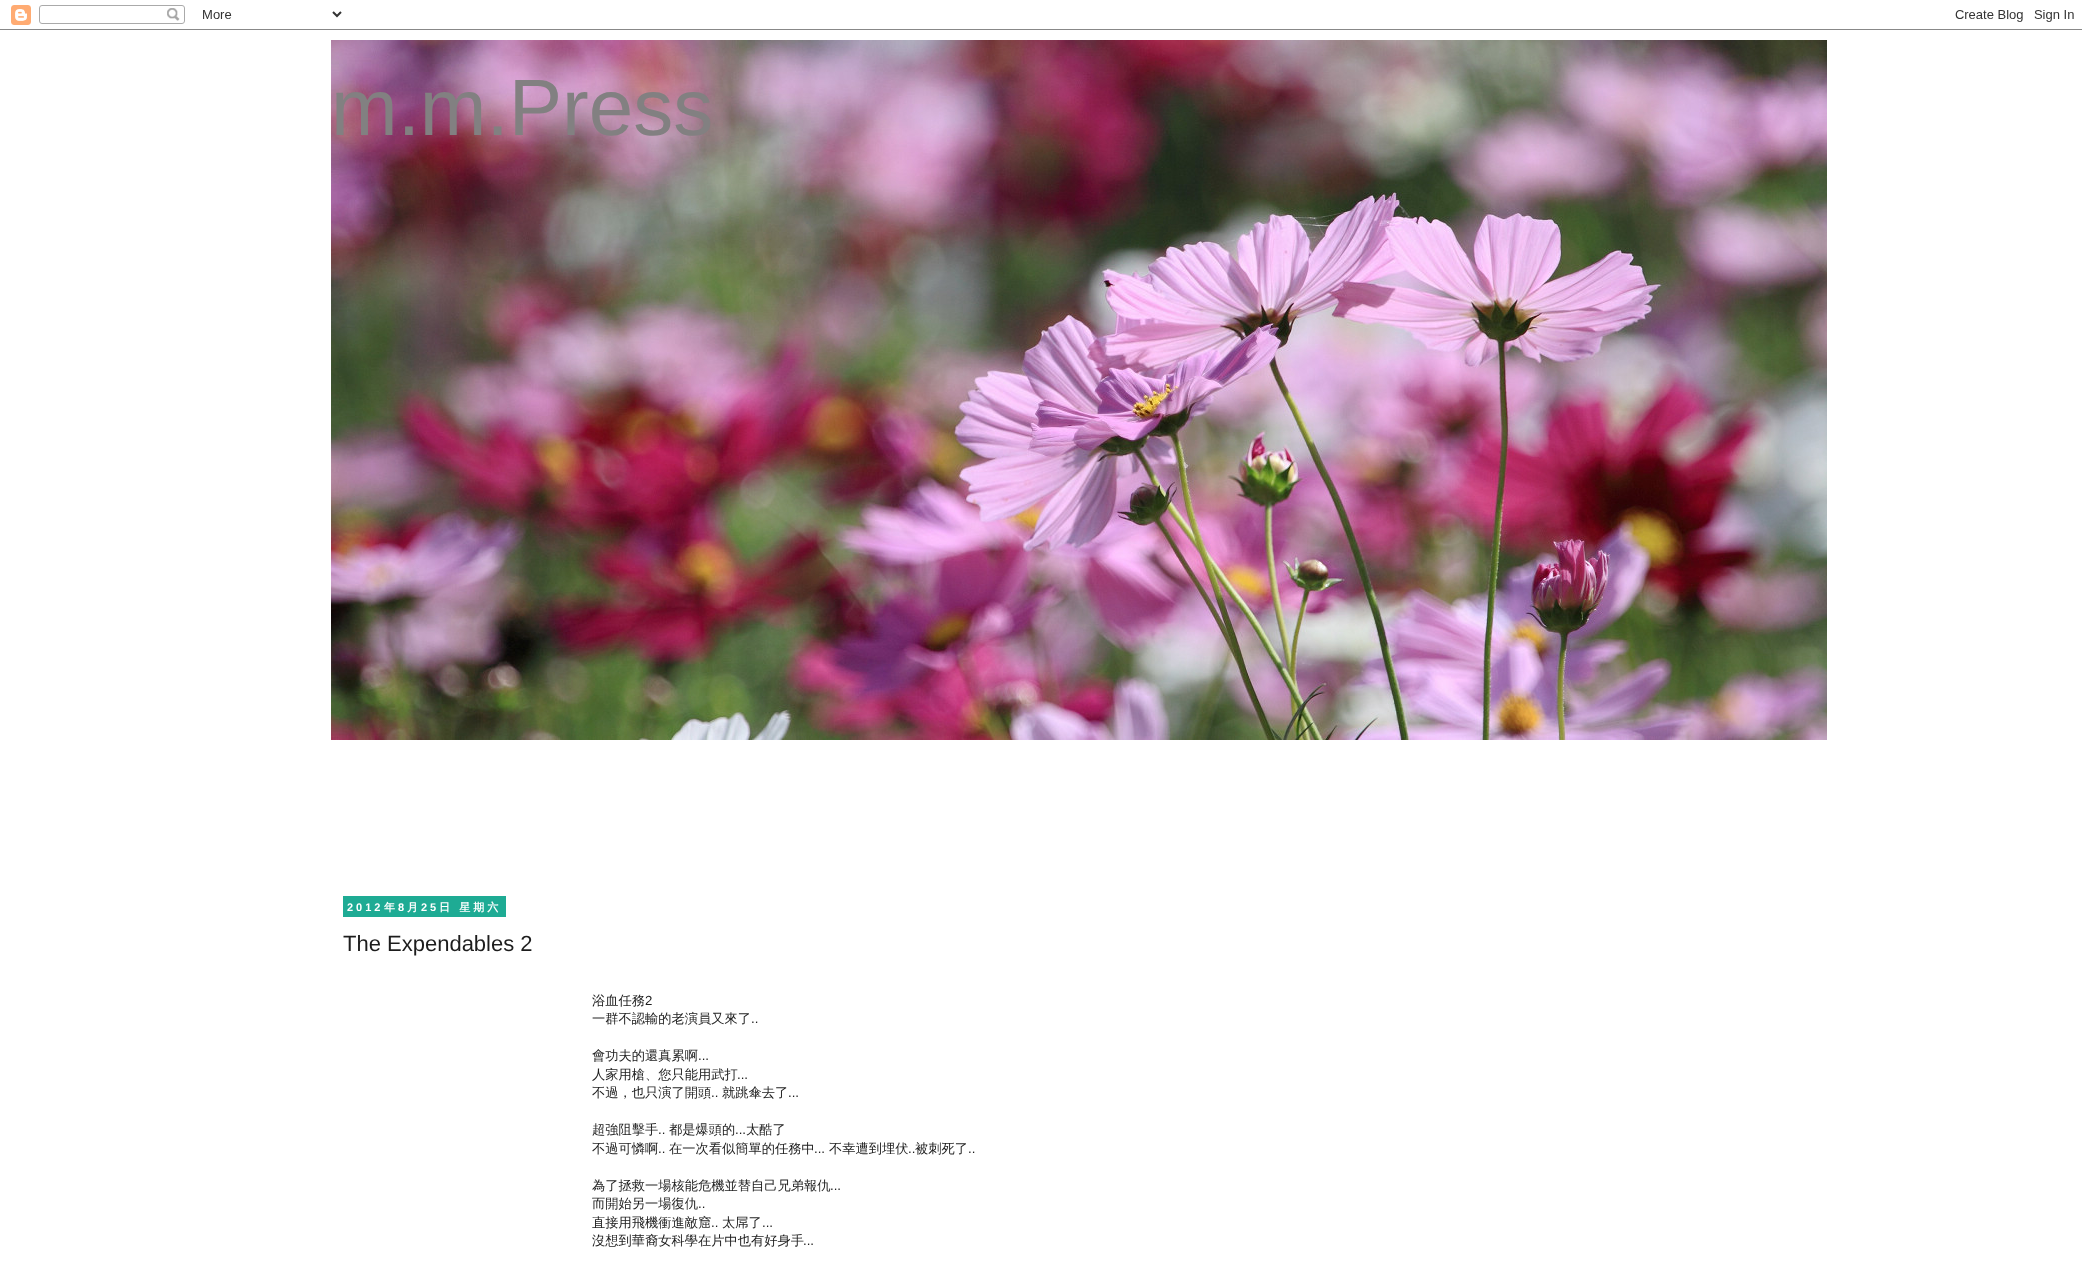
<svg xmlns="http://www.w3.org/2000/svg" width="2082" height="1272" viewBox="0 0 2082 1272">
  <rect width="100%" height="100%" fill="#ffffff"/>
  <image x="0" y="5" width="2082" height="25" href="img1.png"/>
  <image x="331" y="40" width="1496" height="700" href="img2.png"/>
  <text x="331" y="135" font-family="Liberation Sans" font-size="80" fill="#828081">m.m.Press</text>
  <rect x="343" y="896" width="163" height="21" fill="#1eab94"/>
  <text x="347" y="911" font-family="Liberation Sans" font-size="11" font-weight="bold" letter-spacing="3" fill="#ffffff">2012</text>
  <text x="384" y="911" font-family="WenQuanYi Zen Hei" font-size="11" font-weight="bold" letter-spacing="3" fill="#ffffff">年</text>
  <text x="398" y="911" font-family="Liberation Sans" font-size="11" font-weight="bold" letter-spacing="3" fill="#ffffff">8</text>
  <text x="407" y="911" font-family="WenQuanYi Zen Hei" font-size="11" font-weight="bold" letter-spacing="3" fill="#ffffff">月</text>
  <text x="421" y="911" font-family="Liberation Sans" font-size="11" font-weight="bold" letter-spacing="3" fill="#ffffff">25</text>
  <text x="439" y="911" font-family="WenQuanYi Zen Hei" font-size="11" font-weight="bold" letter-spacing="3" fill="#ffffff">日 星期六</text>
  <text x="343" y="951" font-family="Liberation Sans" font-size="22" fill="#1d1d1d">The Expendables 2</text>
  <text x="592" y="1005" font-family="WenQuanYi Zen Hei" font-size="13.25" font-weight="500" fill="#1d1d1d">浴血任務</text>
  <text x="645" y="1005" font-family="Liberation Sans" font-size="13.25" fill="#1d1d1d">2</text>
  <text x="592" y="1023" font-family="WenQuanYi Zen Hei" font-size="13.25" font-weight="500" fill="#1d1d1d">一群不認輸的老演員又來了</text>
  <text x="751" y="1023" font-family="Liberation Sans" font-size="13.25" fill="#1d1d1d">..</text>
  <text x="592" y="1060" font-family="WenQuanYi Zen Hei" font-size="13.25" font-weight="500" fill="#1d1d1d">會功夫的還真累啊</text>
  <text x="698" y="1060" font-family="Liberation Sans" font-size="13.25" fill="#1d1d1d">...</text>
  <text x="592" y="1079" font-family="WenQuanYi Zen Hei" font-size="13.25" font-weight="500" fill="#1d1d1d">人家用槍、您只能用武打</text>
  <text x="737" y="1079" font-family="Liberation Sans" font-size="13.25" fill="#1d1d1d">...</text>
  <text x="592" y="1097" font-family="WenQuanYi Zen Hei" font-size="13.25" font-weight="500" fill="#1d1d1d">不過，也只演了開頭</text>
  <text x="711" y="1097" font-family="Liberation Sans" font-size="13.25" fill="#1d1d1d">..</text>
  <text x="722" y="1097" font-family="WenQuanYi Zen Hei" font-size="13.25" font-weight="500" fill="#1d1d1d">就跳傘去了</text>
  <text x="788" y="1097" font-family="Liberation Sans" font-size="13.25" fill="#1d1d1d">...</text>
  <text x="592" y="1134" font-family="WenQuanYi Zen Hei" font-size="13.25" font-weight="500" fill="#1d1d1d">超強阻擊手</text>
  <text x="658" y="1134" font-family="Liberation Sans" font-size="13.25" fill="#1d1d1d">..</text>
  <text x="669" y="1134" font-family="WenQuanYi Zen Hei" font-size="13.25" font-weight="500" fill="#1d1d1d">都是爆頭的</text>
  <text x="735" y="1134" font-family="Liberation Sans" font-size="13.25" fill="#1d1d1d">...</text>
  <text x="746" y="1134" font-family="WenQuanYi Zen Hei" font-size="13.25" font-weight="500" fill="#1d1d1d">太酷了</text>
  <text x="592" y="1153" font-family="WenQuanYi Zen Hei" font-size="13.25" font-weight="500" fill="#1d1d1d">不過可憐啊</text>
  <text x="658" y="1153" font-family="Liberation Sans" font-size="13.25" fill="#1d1d1d">..</text>
  <text x="669" y="1153" font-family="WenQuanYi Zen Hei" font-size="13.25" font-weight="500" fill="#1d1d1d">在一次看似簡單的任務中</text>
  <text x="814" y="1153" font-family="Liberation Sans" font-size="13.25" fill="#1d1d1d">...</text>
  <text x="829" y="1153" font-family="WenQuanYi Zen Hei" font-size="13.25" font-weight="500" fill="#1d1d1d">不幸遭到埋伏</text>
  <text x="908" y="1153" font-family="Liberation Sans" font-size="13.25" fill="#1d1d1d">..</text>
  <text x="915" y="1153" font-family="WenQuanYi Zen Hei" font-size="13.25" font-weight="500" fill="#1d1d1d">被刺死了</text>
  <text x="968" y="1153" font-family="Liberation Sans" font-size="13.25" fill="#1d1d1d">..</text>
  <text x="592" y="1190" font-family="WenQuanYi Zen Hei" font-size="13.25" font-weight="500" fill="#1d1d1d">為了拯救一場核能危機並替自己兄弟報仇</text>
  <text x="830" y="1190" font-family="Liberation Sans" font-size="13.25" fill="#1d1d1d">...</text>
  <text x="592" y="1208" font-family="WenQuanYi Zen Hei" font-size="13.25" font-weight="500" fill="#1d1d1d">而開始另一場復仇</text>
  <text x="698" y="1208" font-family="Liberation Sans" font-size="13.25" fill="#1d1d1d">..</text>
  <text x="592" y="1227" font-family="WenQuanYi Zen Hei" font-size="13.25" font-weight="500" fill="#1d1d1d">直接用飛機衝進敵窟</text>
  <text x="711" y="1227" font-family="Liberation Sans" font-size="13.25" fill="#1d1d1d">..</text>
  <text x="722" y="1227" font-family="WenQuanYi Zen Hei" font-size="13.25" font-weight="500" fill="#1d1d1d">太屌了</text>
  <text x="762" y="1227" font-family="Liberation Sans" font-size="13.25" fill="#1d1d1d">...</text>
  <text x="592" y="1245" font-family="WenQuanYi Zen Hei" font-size="13.25" font-weight="500" fill="#1d1d1d">沒想到華裔女科學在片中也有好身手</text>
  <text x="803" y="1245" font-family="Liberation Sans" font-size="13.25" fill="#1d1d1d">...</text>
</svg>
